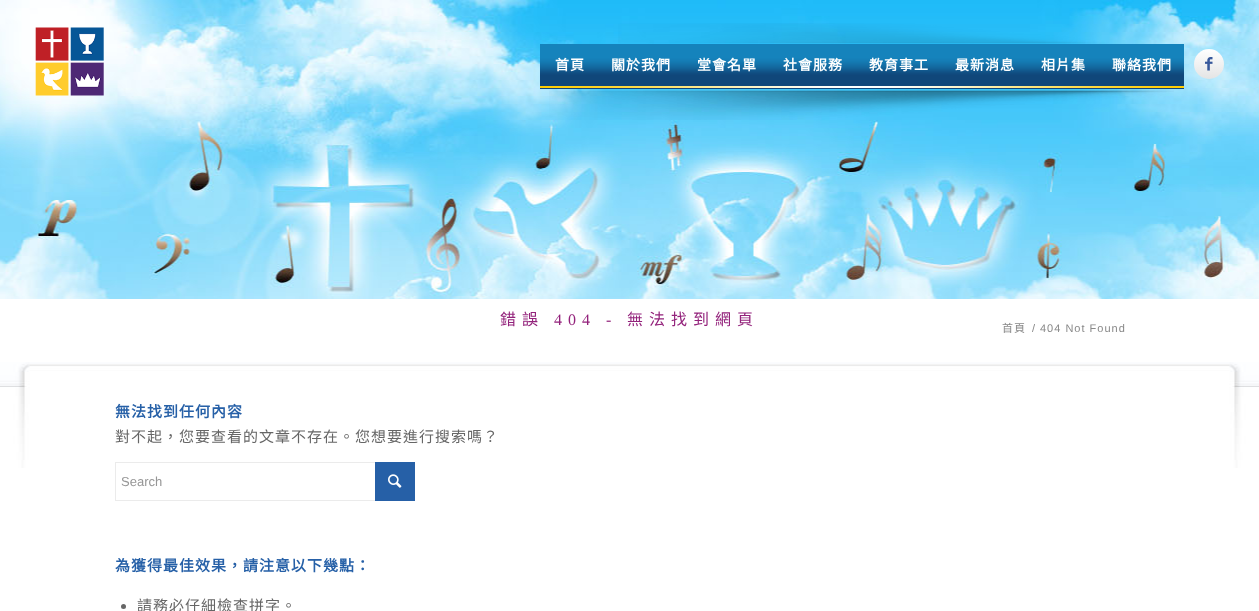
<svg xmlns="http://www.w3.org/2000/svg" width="1259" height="611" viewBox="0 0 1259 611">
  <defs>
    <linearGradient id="g1" gradientUnits="userSpaceOnUse" x1="1209" y1="49" x2="1209" y2="79"><stop offset="0" stop-color="#ffffff"/><stop offset="1" stop-color="#e4e4e4"/></linearGradient>
  </defs>
  <rect width="100%" height="100%" fill="#ffffff"/>
  <image x="0" y="0" width="1259" height="299" href="img1.png"/>
  <image x="35" y="27" width="69" height="69" href="img2.png"/>
  <image x="540" y="23" width="644" height="97" href="img3.png"/>
  <text x="555" y="70" font-family="Noto Sans CJK TC" font-size="14" font-weight="bold" letter-spacing="1" fill="#ffffff">首頁</text>
  <text x="611" y="70" font-family="Noto Sans CJK TC" font-size="14" font-weight="bold" letter-spacing="1" fill="#ffffff">關於我們</text>
  <text x="697" y="70" font-family="Noto Sans CJK TC" font-size="14" font-weight="bold" letter-spacing="1" fill="#ffffff">堂會名單</text>
  <text x="783" y="70" font-family="Noto Sans CJK TC" font-size="14" font-weight="bold" letter-spacing="1" fill="#ffffff">社會服務</text>
  <text x="869" y="70" font-family="Noto Sans CJK TC" font-size="14" font-weight="bold" letter-spacing="1" fill="#ffffff">教育事工</text>
  <text x="955" y="70" font-family="Noto Sans CJK TC" font-size="14" font-weight="bold" letter-spacing="1" fill="#ffffff">最新消息</text>
  <text x="1041" y="70" font-family="Noto Sans CJK TC" font-size="14" font-weight="bold" letter-spacing="1" fill="#ffffff">相片集</text>
  <text x="1112" y="70" font-family="Noto Sans CJK TC" font-size="14" font-weight="bold" letter-spacing="1" fill="#ffffff">聯絡我們</text>
  <circle cx="1209" cy="64" r="15" fill="url(#g1)"/>
  <image x="1205" y="57" width="8" height="14" href="img4.png"/>
  <image x="0" y="362" width="1259" height="106" href="img5.png"/>
  <text x="500" y="325" font-family="Noto Sans CJK TC" font-size="16" letter-spacing="6" fill="#93227b">錯誤</text>
  <text x="554" y="325" font-family="Liberation Serif" font-size="16" letter-spacing="6" fill="#93227b">404 -</text>
  <text x="627" y="325" font-family="Noto Sans CJK TC" font-size="16" letter-spacing="6" fill="#93227b">無法找到網頁</text>
  <text x="1002" y="332" font-family="Noto Sans CJK TC" font-size="11" letter-spacing="1" fill="#888888">首頁</text>
  <text x="1032" y="332" font-family="Liberation Sans" font-size="11" letter-spacing="1" fill="#888888">/</text>
  <text x="1040" y="332" font-family="Liberation Sans" font-size="11" letter-spacing="1" fill="#888888">404 Not Found</text>
  <text x="115" y="417" font-family="Noto Sans CJK TC" font-size="15" font-weight="bold" letter-spacing="1" fill="#2660a7">無法找到任何內容</text>
  <text x="115" y="442" font-family="Noto Sans CJK TC" font-size="15" letter-spacing="1" fill="#666666">對不起，您要查看的文章不存在。您想要進行搜索嗎？</text>
  <rect x="115.5" y="462.5" width="299" height="38" fill="none" stroke="#ebebeb"/>
  <text x="121" y="486" font-family="Liberation Sans" font-size="13" fill="#969696">Search</text>
  <rect x="375" y="462" width="40" height="39" fill="#2660a7"/>
  <image x="388" y="474" width="14" height="14" href="img6.png"/>
  <text x="115" y="571" font-family="Noto Sans CJK TC" font-size="15" font-weight="bold" letter-spacing="1" fill="#2660a7">為獲得最佳效果，請注意以下幾點：</text>
  <circle cx="123.5" cy="606.5" r="2.5" fill="#666666"/>
  <text x="137" y="611" font-family="Noto Sans CJK TC" font-size="15" letter-spacing="1" fill="#666666">請務必仔細檢查拼字。</text>
</svg>
